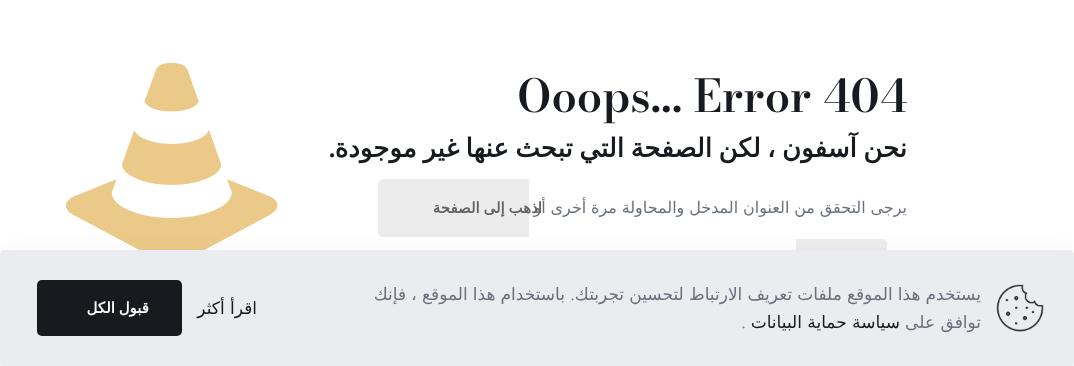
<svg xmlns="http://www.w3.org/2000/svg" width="1074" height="366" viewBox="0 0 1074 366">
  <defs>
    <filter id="blur1" x="-50%" y="-200%" width="200%" height="500%"><feGaussianBlur stdDeviation="15"/></filter>
  </defs>
  <rect width="100%" height="100%" fill="#ffffff"/>
  <text x="517" y="112" font-family="Bodoni Moda" font-size="45" font-weight="600" fill="#171b20">Ooops... Error 404</text>
  <text x="907" y="157" word-spacing="-1.75" font-family="DejaVu Sans" font-size="26" font-weight="bold" direction="rtl" fill="#171b20">نحن آسفون ، لكن الصفحة التي تبحث عنها غير موجودة</text>
  <text x="335" y="157" font-family="Bodoni Moda" font-size="26" font-weight="600" direction="rtl" fill="#171b20">.</text>
  <text x="907" y="213" word-spacing="-0.25" font-family="DejaVu Sans" font-size="16" direction="rtl" fill="#6a717c">يرجى التحقق من العنوان المدخل والمحاولة مرة أخرى أو</text>
  <path d="M383 179H529V237H383C380 237 378 235 378 232V184C378 181 380 179 383 179Z" fill="#ececec"/>
  <text x="542" y="213" word-spacing="-1" font-family="DejaVu Sans" font-size="15" font-weight="bold" letter-spacing="1" direction="rtl" fill="#626262">اذهب إلى الصفحة</text>
  <path d="M796 239H882C885 239 887 241 887 244V292C887 295 885 297 882 297H796Z" fill="#ececec"/>
  <image x="66" y="63" width="212" height="187" href="img1.png"/>
  <rect x="0" y="265" width="1074" height="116" rx="5" fill="#010727" fill-opacity="0.13" filter="url(#blur1)"/>
  <rect x="0" y="250" width="1074" height="116" rx="5" fill="#eaecf0"/>
  <image x="996" y="284" width="48" height="48" href="img2.png"/>
  <text x="981" y="300" word-spacing="-0.25" font-family="DejaVu Sans" font-size="17" direction="rtl" fill="#6a717c">يستخدم هذا الموقع ملفات تعريف الارتباط لتحسين تجربتك</text>
  <text x="575" y="300" font-family="Jost" font-size="17" direction="rtl" fill="#6a717c">.</text>
  <text x="565" y="300" word-spacing="-0.25" font-family="DejaVu Sans" font-size="17" direction="rtl" fill="#6a717c">باستخدام هذا الموقع ، فإنك</text>
  <text x="981" y="328" font-family="DejaVu Sans" font-size="17" direction="rtl" fill="#6a717c">توافق على</text>
  <text x="900" y="328" font-family="DejaVu Sans" font-size="17" direction="rtl" fill="#171b20">سياسة حماية البيانات</text>
  <text x="741" y="328" font-family="Jost" font-size="17" fill="#6a717c">.</text>
  <text x="257" y="314" font-family="DejaVu Sans" font-size="17" direction="rtl" fill="#171b20">اقرأ أكثر</text>
  <rect x="37" y="280" width="145" height="56" rx="5" fill="#171b20"/>
  <text x="149" y="313" word-spacing="-1" font-family="DejaVu Sans" font-size="15" font-weight="bold" letter-spacing="1" direction="rtl" fill="#ffffff">قبول الكل</text>
</svg>
